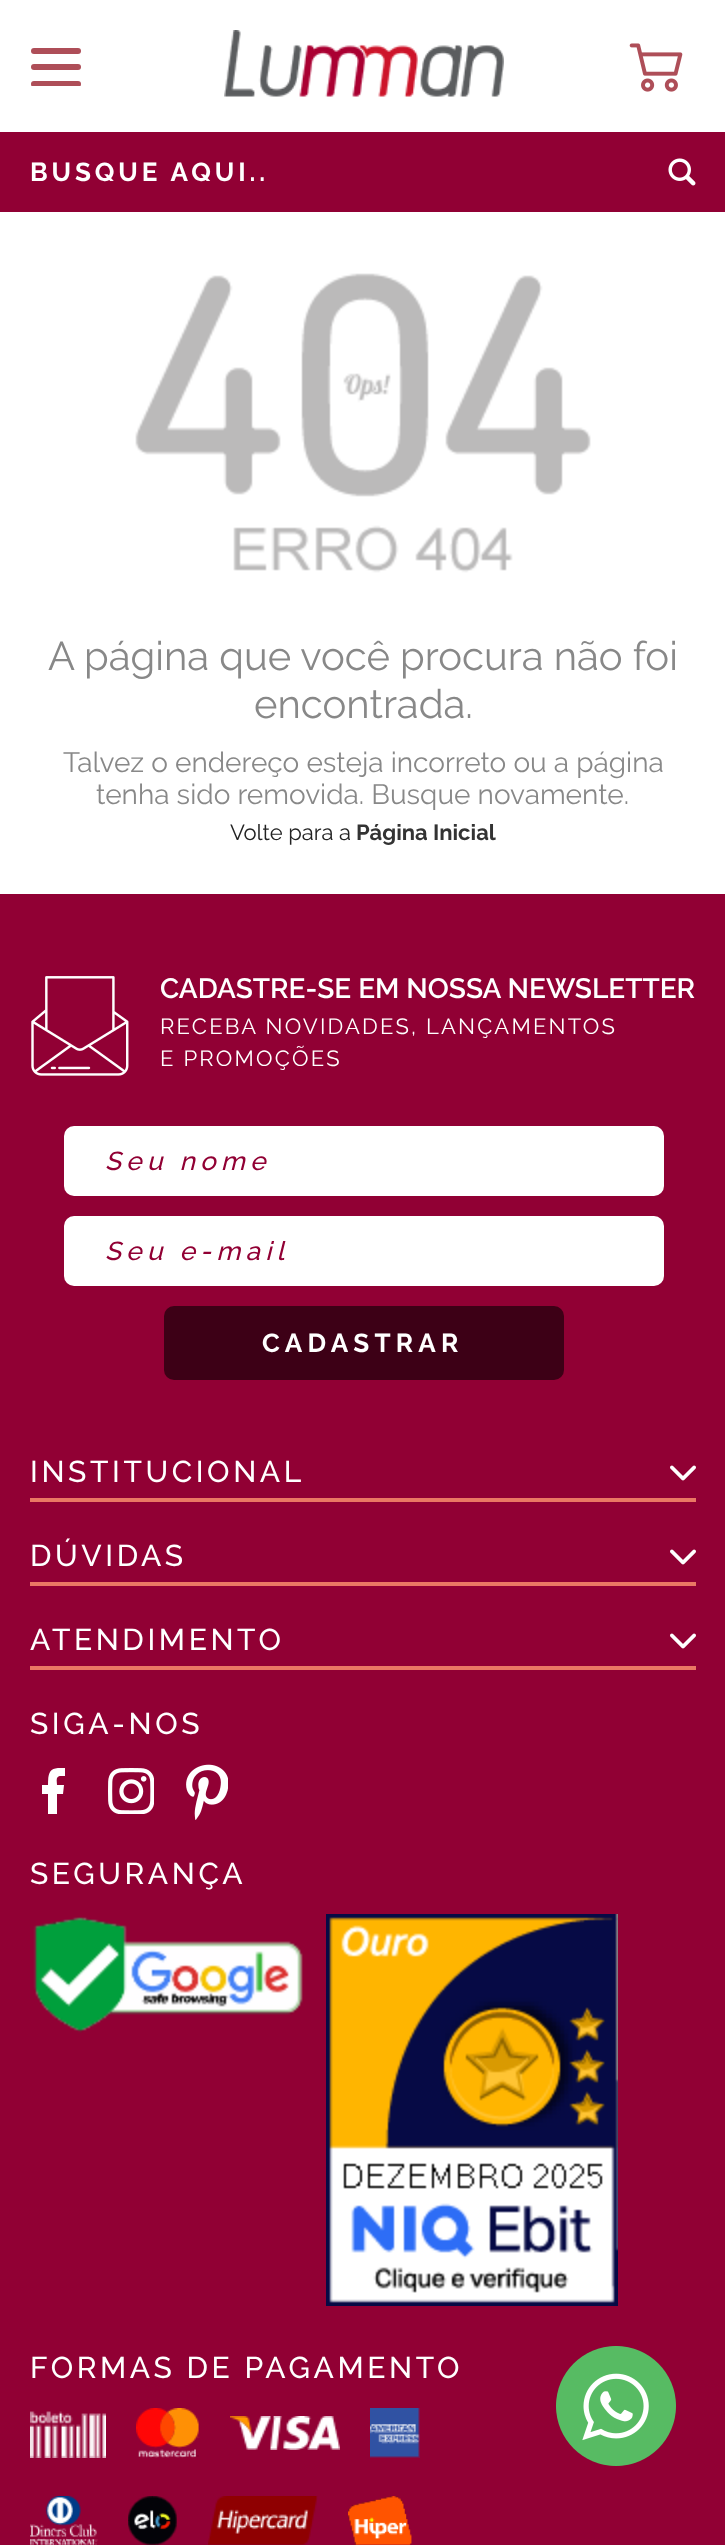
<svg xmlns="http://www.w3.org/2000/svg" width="725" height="2545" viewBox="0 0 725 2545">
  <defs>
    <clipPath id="clip1"><rect x="30" y="48" width="52" height="38"/></clipPath>
    <clipPath id="clip2"><rect x="30" y="1768" width="46" height="46"/></clipPath>
  </defs>
  <rect width="100%" height="100%" fill="#ffffff"/>
  <g clip-path="url(#clip1)">
    <rect x="31" y="81" width="50" height="6" rx="3" fill="#ae4e58"/>
  </g>
  <rect x="31" y="64" width="50" height="6" rx="3" fill="#ae4e58"/>
  <rect x="31" y="48" width="50" height="6" rx="3" fill="#ae4e58"/>
  <image x="224" y="30" width="280" height="67" href="img1.png"/>
  <image x="629" y="43" width="54" height="49" href="img2.png"/>
  <rect x="0" y="132" width="725" height="80" fill="#910034"/>
  <text x="30" y="181" font-family="Raleway" font-size="26" font-weight="bold" letter-spacing="3.9" fill="#ffffff">BUSQUE AQUI..</text>
  <image x="668" y="158" width="28" height="28" href="img3.png"/>
  <image x="135" y="273" width="456" height="300" href="img4.png"/>
  <text x="48" y="670" font-family="Raleway" font-size="40" fill="#888888">A página que você procura não foi</text>
  <text x="254" y="718" font-family="Raleway" font-size="40" fill="#888888">encontrada.</text>
  <text x="63" y="772" font-family="Raleway" font-size="28" fill="#888888">Talvez o endereço esteja incorreto ou a página</text>
  <text x="96" y="804" font-family="Raleway" font-size="28" fill="#888888">tenha sido removida. Busque novamente.</text>
  <text x="230" y="840" font-family="Raleway" font-size="22" fill="#222222">Volte para a</text>
  <text x="356" y="840" font-family="Raleway" font-size="22" font-weight="bold" fill="#333333">Página Inicial</text>
  <rect x="0" y="894" width="725" height="1651" fill="#910034"/>
  <image x="31" y="976" width="98" height="100" href="img5.png"/>
  <text x="160" y="998" font-family="Raleway" font-size="28" font-weight="600" fill="#ffffff">CADASTRE-SE EM NOSSA NEWSLETTER</text>
  <text x="160" y="1034" font-family="Raleway" font-size="22" letter-spacing="2.2" fill="#ffffff">RECEBA NOVIDADES, LANÇAMENTOS</text>
  <text x="160" y="1066" font-family="Raleway" font-size="22" letter-spacing="2.2" fill="#ffffff">E PROMOÇÕES</text>
  <rect x="64" y="1126" width="600" height="70" rx="10" fill="#ffffff"/>
  <text x="105" y="1170" font-family="Raleway" font-size="26" font-weight="500" font-style="italic" letter-spacing="5.25" fill="#910034">Seu nome</text>
  <rect x="64" y="1216" width="600" height="70" rx="10" fill="#ffffff"/>
  <text x="105" y="1260" font-family="Raleway" font-size="26" font-weight="500" font-style="italic" letter-spacing="5.25" fill="#910034">Seu e-mail</text>
  <rect x="164" y="1306" width="400" height="74" rx="10" fill="#3d0016"/>
  <text x="262" y="1352" font-family="Raleway" font-size="26" font-weight="bold" letter-spacing="5.25" fill="#ffffff">CADASTRAR</text>
  <rect x="30" y="1498" width="666" height="4" fill="#ea7864"/>
  <text x="30" y="1482" font-family="Raleway" font-size="30" font-weight="500" letter-spacing="3.6" fill="#ffffff">INSTITUCIONAL</text>
  <image x="670" y="1465" width="26" height="16" href="img6.png"/>
  <rect x="30" y="1582" width="666" height="4" fill="#ea7864"/>
  <text x="30" y="1566" font-family="Raleway" font-size="30" font-weight="500" letter-spacing="3.6" fill="#ffffff">DÚVIDAS</text>
  <image x="670" y="1549" width="26" height="16" href="img6.png"/>
  <rect x="30" y="1666" width="666" height="4" fill="#ea7864"/>
  <text x="30" y="1650" font-family="Raleway" font-size="30" font-weight="500" letter-spacing="3.6" fill="#ffffff">ATENDIMENTO</text>
  <image x="670" y="1633" width="26" height="16" href="img6.png"/>
  <text x="30" y="1734" font-family="Raleway" font-size="30" font-weight="500" letter-spacing="3.6" fill="#ffffff">SIGA-NOS</text>
  <g clip-path="url(#clip2)">
    <path d="M61 1776H65V1768C50 1767 48 1771 48 1785H42V1794H48V1815H57V1794H63L64 1785H57C57 1782 55 1776 61 1776Z" fill="#ffffff"/>
  </g>
  <image x="108" y="1768" width="46" height="46" href="img7.png"/>
  <image x="186" y="1764" width="42" height="56" href="img8.png"/>
  <text x="30" y="1884" font-family="Raleway" font-size="30" font-weight="500" letter-spacing="3.6" fill="#ffffff">SEGURANÇA</text>
  <image x="33" y="1917" width="270" height="116" href="img9.png"/>
  <image x="326" y="1914" width="292" height="392" href="img10.png"/>
  <text x="30" y="2378" font-family="Raleway" font-size="30" font-weight="500" letter-spacing="3.6" fill="#ffffff">FORMAS DE PAGAMENTO</text>
  <image x="30" y="2411" width="76" height="47" href="img11.png"/>
  <image x="136" y="2408" width="64" height="50" href="img12.png"/>
  <image x="230" y="2416" width="110" height="34" href="img13.png"/>
  <image x="370" y="2408" width="50" height="50" href="img14.png"/>
  <image x="30" y="2496" width="68" height="49" href="img15.png"/>
  <image x="128" y="2496" width="49" height="49" href="img16.png"/>
  <image x="208" y="2496" width="110" height="49" href="img17.png"/>
  <image x="348" y="2496" width="64" height="49" href="img18.png"/>
  <image x="556" y="2346" width="120" height="120" href="img19.png"/>
</svg>
